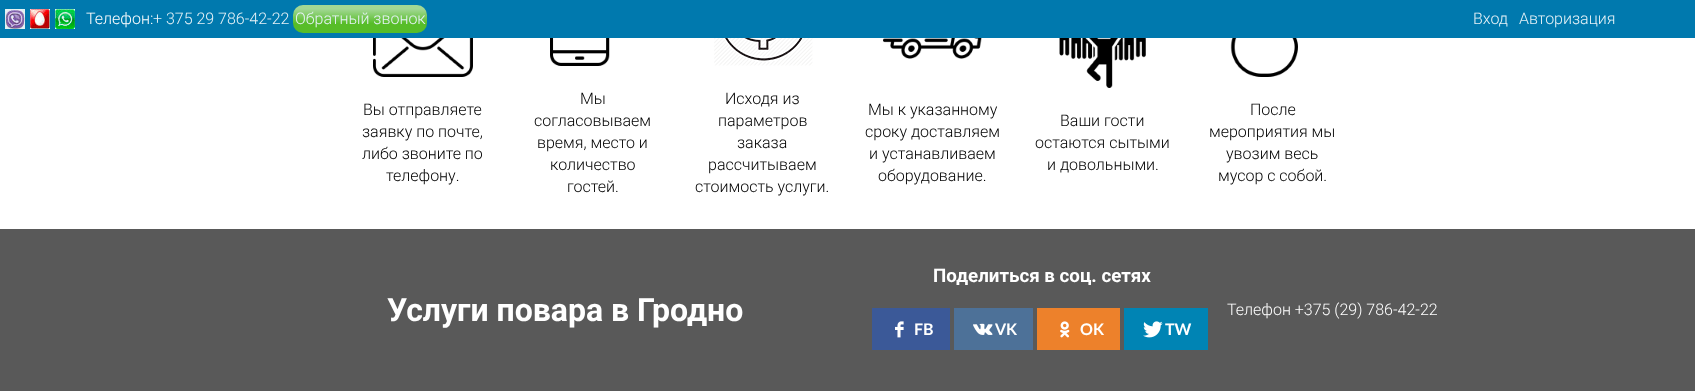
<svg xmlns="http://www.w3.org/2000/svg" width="1695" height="391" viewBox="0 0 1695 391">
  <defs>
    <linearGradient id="g1" gradientUnits="userSpaceOnUse" x1="360" y1="5" x2="360" y2="33"><stop offset="0.14" stop-color="#a2d894"/><stop offset="0.66" stop-color="#57bd28"/></linearGradient>
  </defs>
  <rect width="100%" height="100%" fill="#ffffff"/>
  <rect x="0" y="0" width="1695" height="38" fill="#0079ae"/>
  <image x="5" y="9" width="20" height="20" href="img1.png"/>
  <image x="30" y="9" width="20" height="20" href="img2.png"/>
  <image x="55" y="9" width="20" height="20" href="img3.png"/>
  <text x="86" y="24" font-family="Roboto" font-size="16" font-weight="300" fill="#ffffff">Телефон:</text>
  <text x="153" y="24" font-family="Roboto" font-size="16" font-weight="300" fill="#e6f2f7">+ 375 29 786-42-22</text>
  <rect x="293" y="5" width="134" height="28" rx="10" fill="url(#g1)"/>
  <text x="295" y="24" font-family="Roboto" font-size="16" font-weight="300" fill="#e6f2f7">Обратный звонок</text>
  <text x="1473" y="24" font-family="Roboto" font-size="16" font-weight="300" fill="#e6f2f7">Вход</text>
  <text x="1519" y="24" font-family="Roboto" font-size="16" font-weight="300" fill="#e6f2f7">Авторизация</text>
  <image x="373" y="38" width="100" height="39" href="img4.png"/>
  <text x="363" y="115" font-family="Roboto" font-size="16" font-weight="300" fill="#000000">Вы отправляете</text>
  <text x="362" y="137" font-family="Roboto" font-size="16" font-weight="300" fill="#000000">заявку по почте,</text>
  <text x="362" y="159" font-family="Roboto" font-size="16" font-weight="300" fill="#000000">либо звоните по</text>
  <text x="386" y="181" font-family="Roboto" font-size="16" font-weight="300" fill="#000000">телефону.</text>
  <image x="550" y="38" width="60" height="28" href="img5.png"/>
  <text x="580" y="104" font-family="Roboto" font-size="16" font-weight="300" fill="#000000">Мы</text>
  <text x="534" y="126" font-family="Roboto" font-size="16" font-weight="300" fill="#000000">согласовываем</text>
  <text x="537" y="148" font-family="Roboto" font-size="16" font-weight="300" fill="#000000">время, место и</text>
  <text x="550" y="170" font-family="Roboto" font-size="16" font-weight="300" fill="#000000">количество</text>
  <text x="567" y="192" font-family="Roboto" font-size="16" font-weight="300" fill="#000000">гостей.</text>
  <image x="714" y="38" width="99" height="28" href="img6.png"/>
  <text x="725" y="104" font-family="Roboto" font-size="16" font-weight="300" fill="#000000">Исходя из</text>
  <text x="718" y="126" font-family="Roboto" font-size="16" font-weight="300" fill="#000000">параметров</text>
  <text x="737" y="148" font-family="Roboto" font-size="16" font-weight="300" fill="#000000">заказа</text>
  <text x="708" y="170" font-family="Roboto" font-size="16" font-weight="300" fill="#000000">рассчитываем</text>
  <text x="695" y="192" font-family="Roboto" font-size="16" font-weight="300" fill="#000000">стоимость услуги.</text>
  <image x="883" y="38" width="99" height="21" href="img7.png"/>
  <text x="868" y="115" font-family="Roboto" font-size="16" font-weight="300" fill="#000000">Мы к указанному</text>
  <text x="865" y="137" font-family="Roboto" font-size="16" font-weight="300" fill="#000000">сроку доставляем</text>
  <text x="869" y="159" font-family="Roboto" font-size="16" font-weight="300" fill="#000000">и устанавливаем</text>
  <text x="878" y="181" font-family="Roboto" font-size="16" font-weight="300" fill="#000000">оборудование.</text>
  <image x="1059" y="38" width="87" height="50" href="img8.png"/>
  <text x="1060" y="126" font-family="Roboto" font-size="16" font-weight="300" fill="#000000">Ваши гости</text>
  <text x="1035" y="148" font-family="Roboto" font-size="16" font-weight="300" fill="#000000">остаются сытыми</text>
  <text x="1047" y="170" font-family="Roboto" font-size="16" font-weight="300" fill="#000000">и довольными.</text>
  <image x="1230" y="38" width="68" height="39" href="img9.png"/>
  <text x="1250" y="115" font-family="Roboto" font-size="16" font-weight="300" fill="#000000">После</text>
  <text x="1209" y="137" font-family="Roboto" font-size="16" font-weight="300" fill="#000000">мероприятия мы</text>
  <text x="1226" y="159" font-family="Roboto" font-size="16" font-weight="300" fill="#000000">увозим весь</text>
  <text x="1218" y="181" font-family="Roboto" font-size="16" font-weight="300" fill="#000000">мусор с собой.</text>
  <rect x="0" y="229" width="1695" height="162" fill="#595959"/>
  <text x="387" y="321" font-family="Roboto" font-size="32" font-weight="bold" fill="#ffffff">Услуги повара в Гродно</text>
  <text x="933" y="282" font-family="Roboto" font-size="18.75" font-weight="bold" fill="#ffffff">Поделиться в соц. сетях</text>
  <rect x="872" y="308" width="78" height="42" fill="#3b5998"/>
  <image x="895" y="321" width="9" height="17" href="img10.png"/>
  <text x="914" y="335" font-family="Lato" font-size="16" font-weight="bold" fill="#ffffff">FB</text>
  <rect x="954" y="308" width="79" height="42" fill="#4d7198"/>
  <image x="973" y="323" width="20" height="12" href="img11.png"/>
  <text x="995" y="335" font-family="Lato" font-size="16" font-weight="bold" fill="#ffffff">VK</text>
  <rect x="1037" y="308" width="83" height="42" fill="#ed812b"/>
  <image x="1060" y="321" width="10" height="17" href="img12.png"/>
  <text x="1080" y="335" font-family="Lato" font-size="16" font-weight="bold" fill="#ffffff">OK</text>
  <rect x="1124" y="308" width="84" height="42" fill="#0084b4"/>
  <image x="1143" y="321" width="20" height="17" href="img13.png"/>
  <text x="1165" y="335" font-family="Lato" font-size="16" font-weight="bold" fill="#ffffff">TW</text>
  <text x="1227" y="315" font-family="Roboto" font-size="16" font-weight="300" fill="#ffffff">Телефон +375 (29) 786-42-22</text>
</svg>
